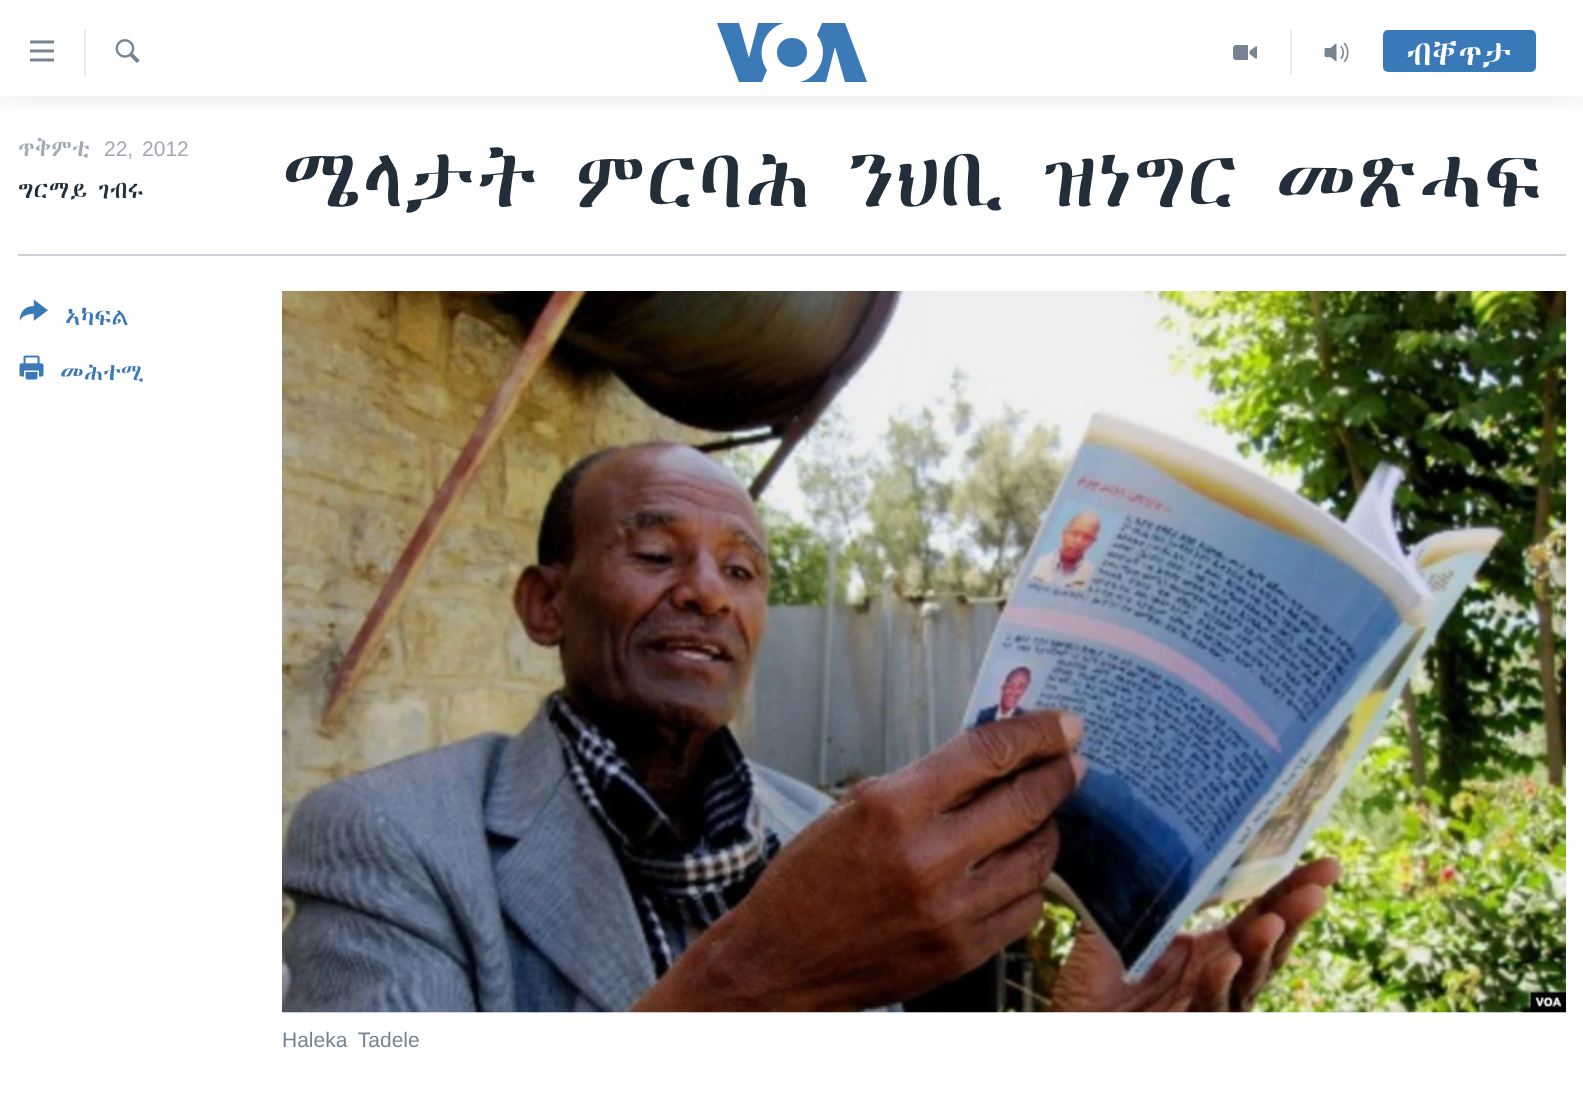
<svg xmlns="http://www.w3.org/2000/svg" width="1583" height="1111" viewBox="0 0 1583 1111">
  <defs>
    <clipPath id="clip1"><rect x="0" y="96" width="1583" height="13"/></clipPath>
    <filter id="blur1" x="-50%" y="-200%" width="200%" height="500%"><feGaussianBlur stdDeviation="15"/></filter>
  </defs>
  <rect width="100%" height="100%" fill="#ffffff"/>
  <g clip-path="url(#clip1)">
    <rect x="0" y="0" width="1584" height="96" fill="#000000" fill-opacity="0.1" filter="url(#blur1)"/>
  </g>
  <image x="30" y="40" width="24" height="22" href="img1.png"/>
  <rect x="84" y="29" width="2" height="48" fill="#ebebeb"/>
  <image x="115" y="39" width="25" height="24" href="img2.png"/>
  <path d="M767 70L762 82H739L717 23H739L749 58L758 23H784C764 28 755 53 767 70ZM792 38C772 38 772 67 792 67C812 67 812 38 792 38ZM823 52C823 67 813 79 800 82H826L835 47L845 82H867L845 23H822L817 35C821 40 823 46 823 52Z" fill="#3b79b7"/>
  <rect x="1290" y="30" width="2" height="45" fill="#ebebeb"/>
  <image x="1233" y="45" width="24" height="15" href="img3.png"/>
  <image x="1324" y="42" width="25" height="21" href="img4.png"/>
  <rect x="1383" y="30" width="153" height="42" rx="5" fill="#3a79b7"/>
  <text x="1406" y="65" font-family="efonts" font-size="30" fill="#ffffff">ብቐጥታ</text>
  <text x="18" y="156" font-family="efonts" font-size="21" fill="#a1aab4">ጥቅምቲ</text>
  <text x="104" y="156" word-spacing="3" font-family="Liberation Sans" font-size="21" fill="#a1aab4">22, 2012</text>
  <text x="18" y="198" font-family="efonts" font-size="21" fill="#222f3a">ግርማይ ገብሩ</text>
  <text x="282" y="207" font-family="efonts" font-size="72" fill="#222f3a">ሜላታት ምርባሕ ንህቢ ዝነግር መጽሓፍ</text>
  <rect x="18" y="254" width="1548" height="2" fill="#cbd1d6"/>
  <image x="19" y="299" width="29" height="22" href="img5.png"/>
  <text x="65" y="325" font-family="efonts" font-size="21" fill="#3a79b7">ኣካፍል</text>
  <image x="19" y="355" width="25" height="25" href="img6.png"/>
  <text x="60" y="380" font-family="efonts" font-size="21" fill="#3a79b7">መሕተሚ</text>
  <rect x="282" y="1012" width="1284" height="1" fill="#f6f7f8"/>
  <image x="282" y="291" width="1284" height="722" href="img7.png"/>
  <text x="282" y="1047" word-spacing="5" font-family="Liberation Sans" font-size="21" fill="#768492">Haleka Tadele</text>
</svg>
